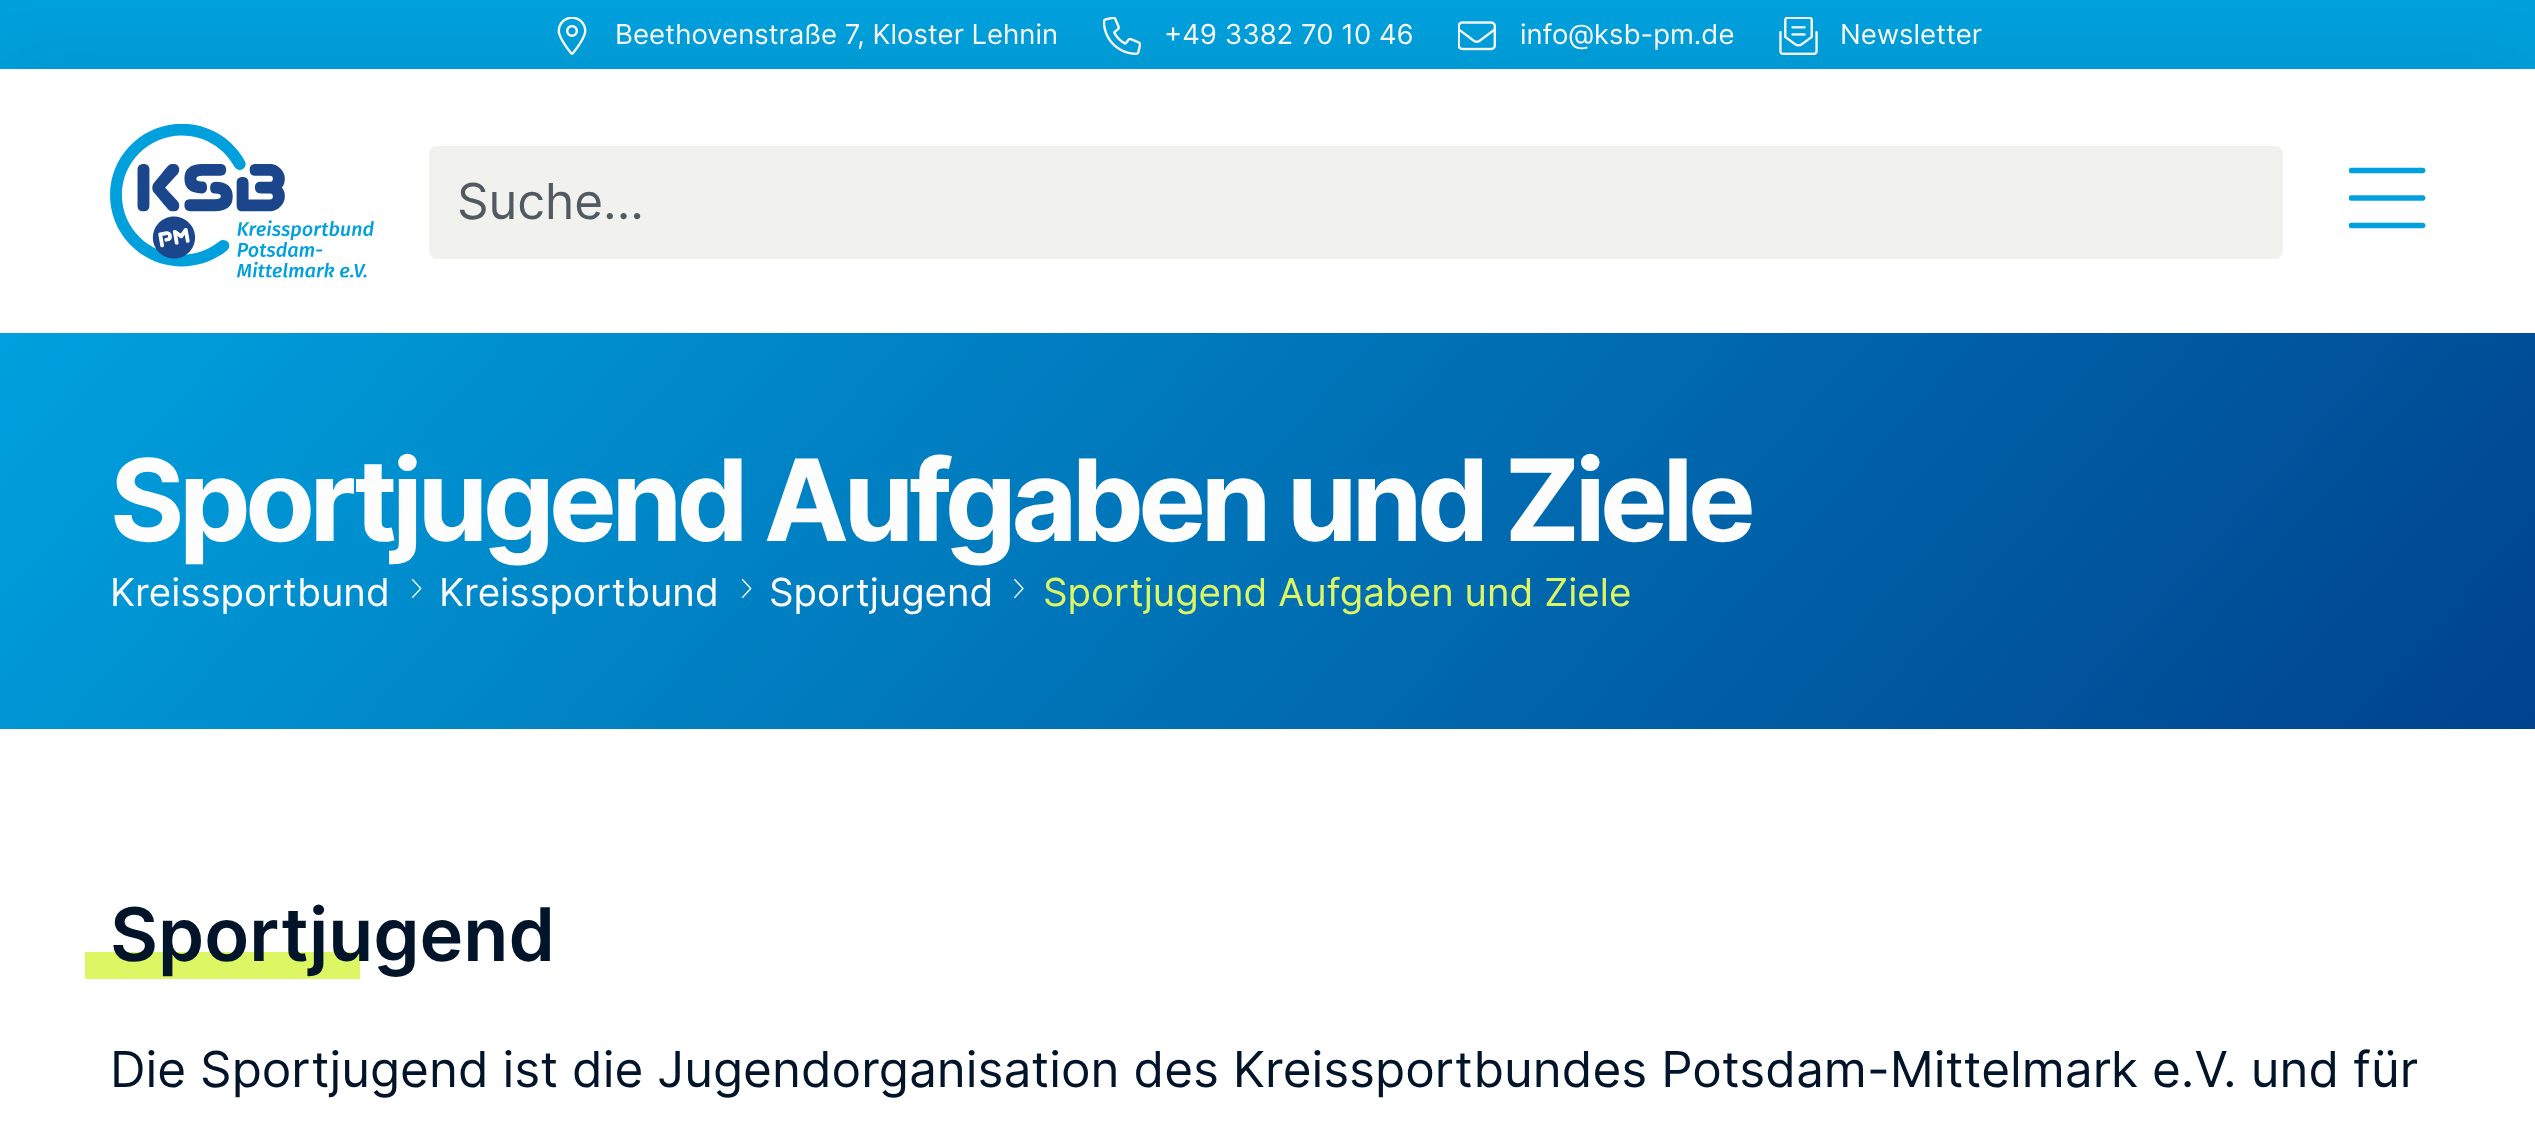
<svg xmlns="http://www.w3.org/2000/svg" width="2535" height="1140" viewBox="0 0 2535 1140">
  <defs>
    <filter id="blur1" x="-50%" y="-200%" width="200%" height="500%"><feGaussianBlur stdDeviation="58"/></filter>
    <filter id="blur2" x="-50%" y="-200%" width="200%" height="500%"><feGaussianBlur stdDeviation="37"/></filter>
    <linearGradient id="g1" gradientUnits="userSpaceOnUse" x1="469" y1="-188" x2="2066" y2="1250"><stop offset="0" stop-color="#00a1de"/><stop offset="1" stop-color="#00428e"/></linearGradient>
  </defs>
  <rect width="100%" height="100%" fill="#ffffff"/>
  <rect x="0" y="0" width="2535" height="69" fill="#00a1de"/>
  <image x="557" y="17" width="30" height="38" href="img1.png"/>
  <text x="615" y="44" font-family="Inter" font-size="27.5" fill="#fcfdfc">Beethovenstraße 7, Kloster Lehnin</text>
  <image x="1103" y="17" width="38" height="38" href="img2.png"/>
  <text x="1164" y="44" font-family="Inter" font-size="27.5" fill="#fcfdfc">+49 3382 70 10 46</text>
  <image x="1458" y="21" width="38" height="30" href="img3.png"/>
  <text x="1520" y="44" font-family="Inter" font-size="27.5" fill="#fcfdfc">info@ksb-pm.de</text>
  <image x="1779" y="17" width="39" height="38" href="img4.png"/>
  <text x="1840" y="44" font-family="Inter" font-size="27.5" fill="#fcfdfc">Newsletter</text>
  <rect x="0" y="69" width="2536" height="264" fill="#030712" fill-opacity="0.06" filter="url(#blur1)"/>
  <rect x="0" y="69" width="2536" height="264" fill="#030712" fill-opacity="0.05" filter="url(#blur2)"/>
  <rect x="0" y="69" width="2535" height="264" fill="#ffffff"/>
  <image x="110" y="124" width="264" height="154" href="img5.png"/>
  <rect x="429" y="146" width="1854" height="113" rx="8" fill="#f1f2ee"/>
  <text x="457" y="219" font-family="Inter" font-size="49.5" fill="#515962">Suche...</text>
  <image x="2349" y="167" width="77" height="62" href="img6.png"/>
  <rect x="0" y="333" width="2535" height="396" fill="url(#g1)"/>
  <text x="110" y="541" font-family="Inter" font-size="113.6" font-weight="bold" letter-spacing="-5.5" fill="#fcfdfc">Sportjugend Aufgaben und Ziele</text>
  <text x="110" y="606" font-family="Inter" font-size="38.5" fill="#fcfdfc">Kreissportbund</text>
  <image x="411" y="578" width="11" height="21" href="img7.png"/>
  <text x="439" y="606" font-family="Inter" font-size="38.5" fill="#fcfdfc">Kreissportbund</text>
  <image x="741" y="578" width="11" height="21" href="img8.png"/>
  <text x="769" y="606" font-family="Inter" font-size="38.5" fill="#fcfdfc">Sportjugend</text>
  <image x="1014" y="578" width="10" height="21" href="img9.png"/>
  <text x="1043" y="606" font-family="Inter" font-size="38.5" fill="#dcf763">Sportjugend Aufgaben und Ziele</text>
  <rect x="85" y="952" width="275" height="27" fill="#dcf763"/>
  <text x="110" y="961" font-family="Inter" font-size="74" font-weight="600" fill="#01142a">Sportjugend</text>
  <text x="110" y="1087" font-family="Inter" font-size="49.5" fill="#01142a">Die Sportjugend ist die Jugendorganisation des Kreissportbundes Potsdam-Mittelmark e.V. und für</text>
</svg>
